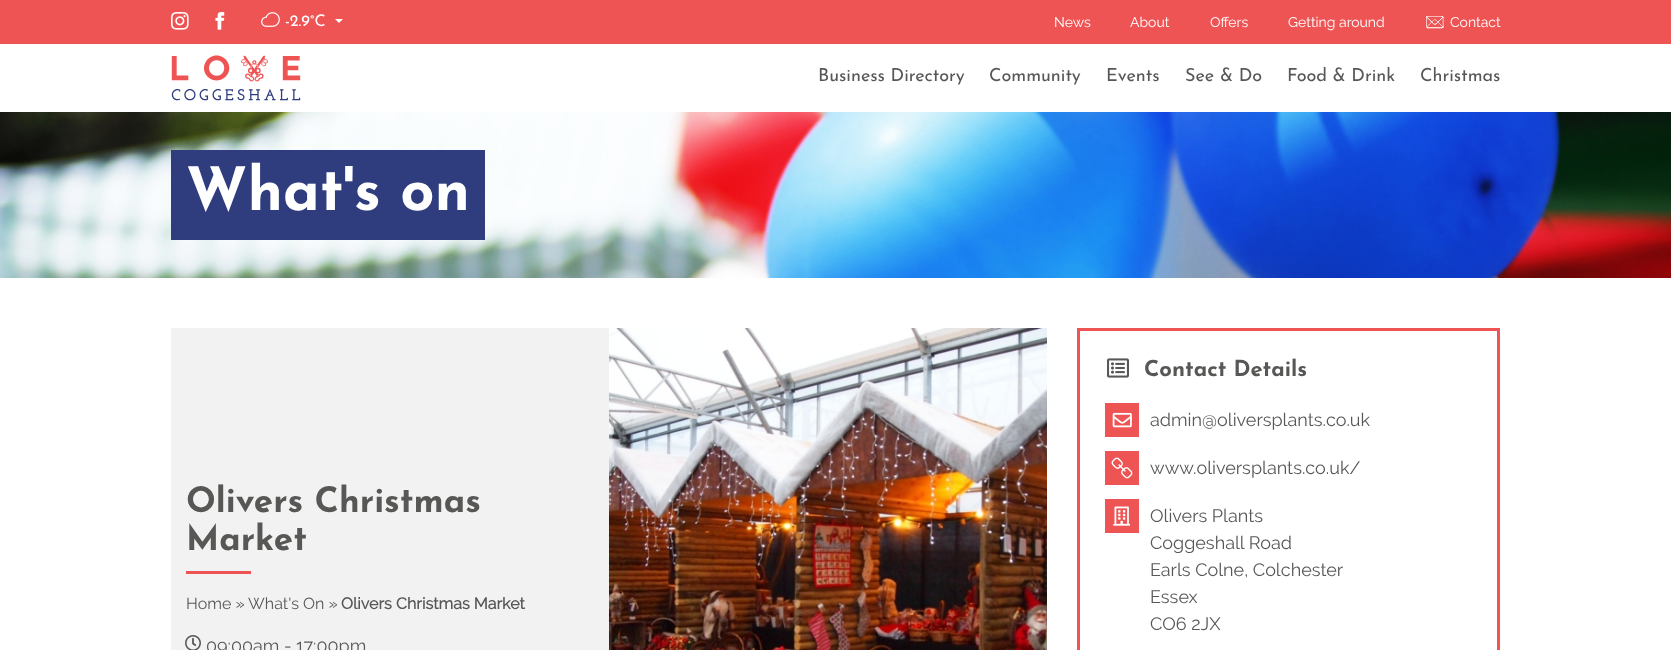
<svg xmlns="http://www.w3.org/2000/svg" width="1671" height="650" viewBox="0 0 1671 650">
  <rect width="100%" height="100%" fill="#ffffff"/>
  <rect x="0" y="0" width="1671" height="44" fill="#ef5455"/>
  <image x="171" y="12" width="18" height="18" href="img1.png"/>
  <image x="215" y="12" width="10" height="18" href="img2.png"/>
  <image x="261" y="12" width="19" height="15" href="img3.png"/>
  <text x="285" y="26" font-family="Josefin Sans" font-size="16" fill="#ffffff">-2.9°C</text>
  <path d="M335 19H343L339 23Z" fill="#ffffff"/>
  <text x="1054" y="27" font-family="Raleway" font-size="14" fill="#ffffff">News</text>
  <text x="1130" y="27" font-family="Raleway" font-size="14" fill="#ffffff">About</text>
  <text x="1210" y="27" font-family="Raleway" font-size="14" fill="#ffffff">Offers</text>
  <text x="1288" y="27" font-family="Raleway" font-size="14" fill="#ffffff">Getting around</text>
  <image x="1426" y="16" width="18" height="13" href="img4.png"/>
  <text x="1450" y="27" font-family="Raleway" font-size="14" fill="#ffffff">Contact</text>
  <image x="171" y="55" width="130" height="46" href="img5.png"/>
  <text x="818" y="81" font-family="Josefin Sans" font-size="18" fill="#575756">Business Directory</text>
  <text x="989" y="81" font-family="Josefin Sans" font-size="18" fill="#575756">Community</text>
  <text x="1106" y="81" font-family="Josefin Sans" font-size="18" fill="#575756">Events</text>
  <text x="1185" y="81" font-family="Josefin Sans" font-size="18" fill="#575756">See &amp; Do</text>
  <text x="1287" y="81" font-family="Josefin Sans" font-size="18" fill="#575756">Food &amp; Drink</text>
  <text x="1420" y="81" font-family="Josefin Sans" font-size="18" fill="#575756">Christmas</text>
  <image x="0" y="112" width="1671" height="166" href="img6.png"/>
  <rect x="171" y="150" width="314" height="90" fill="#2f3c7e"/>
  <text x="186" y="210" font-family="Josefin Sans" font-size="60" font-weight="bold" fill="#ffffff">What's on</text>
  <rect x="171" y="328" width="438" height="322" fill="#f2f2f2"/>
  <text x="186" y="512" font-family="Josefin Sans" font-size="35" font-weight="bold" fill="#575756">Olivers Christmas</text>
  <text x="186" y="550" font-family="Josefin Sans" font-size="35" font-weight="bold" fill="#575756">Market</text>
  <rect x="186" y="571" width="65" height="3" fill="#ef5455"/>
  <text x="186" y="609" font-family="Raleway" font-size="16" fill="#575756">Home » What's On »</text>
  <text x="341" y="609" font-family="Raleway" font-size="16" font-weight="bold" fill="#575756">Olivers Christmas Market</text>
  <image x="185" y="635" width="16" height="15" href="img7.png"/>
  <text x="206" y="652" font-family="Raleway" font-size="18" fill="#575756">09:00am - 17:00pm</text>
  <image x="609" y="328" width="438" height="322" href="img8.png"/>
  <rect x="1078.5" y="329.5" width="420" height="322" fill="none" stroke="#ef5455" stroke-width="3"/>
  <image x="1107" y="358" width="22" height="20" href="img9.png"/>
  <text x="1144" y="376" font-family="Josefin Sans" font-size="22" font-weight="bold" fill="#575756">Contact Details</text>
  <image x="1105" y="403" width="34" height="34" href="img10.png"/>
  <text x="1150" y="426" font-family="Raleway" font-size="18" fill="#575756">admin@oliversplants.co.uk</text>
  <image x="1105" y="451" width="34" height="34" href="img11.png"/>
  <text x="1150" y="474" font-family="Raleway" font-size="18" fill="#575756">www.oliversplants.co.uk/</text>
  <image x="1105" y="499" width="34" height="34" href="img12.png"/>
  <text x="1150" y="522" font-family="Raleway" font-size="18" fill="#575756">Olivers Plants</text>
  <text x="1150" y="549" font-family="Raleway" font-size="18" fill="#575756">Coggeshall Road</text>
  <text x="1150" y="576" font-family="Raleway" font-size="18" fill="#575756">Earls Colne, Colchester</text>
  <text x="1150" y="603" font-family="Raleway" font-size="18" fill="#575756">Essex</text>
  <text x="1150" y="630" font-family="Raleway" font-size="18" fill="#575756">CO6 2JX</text>
</svg>
